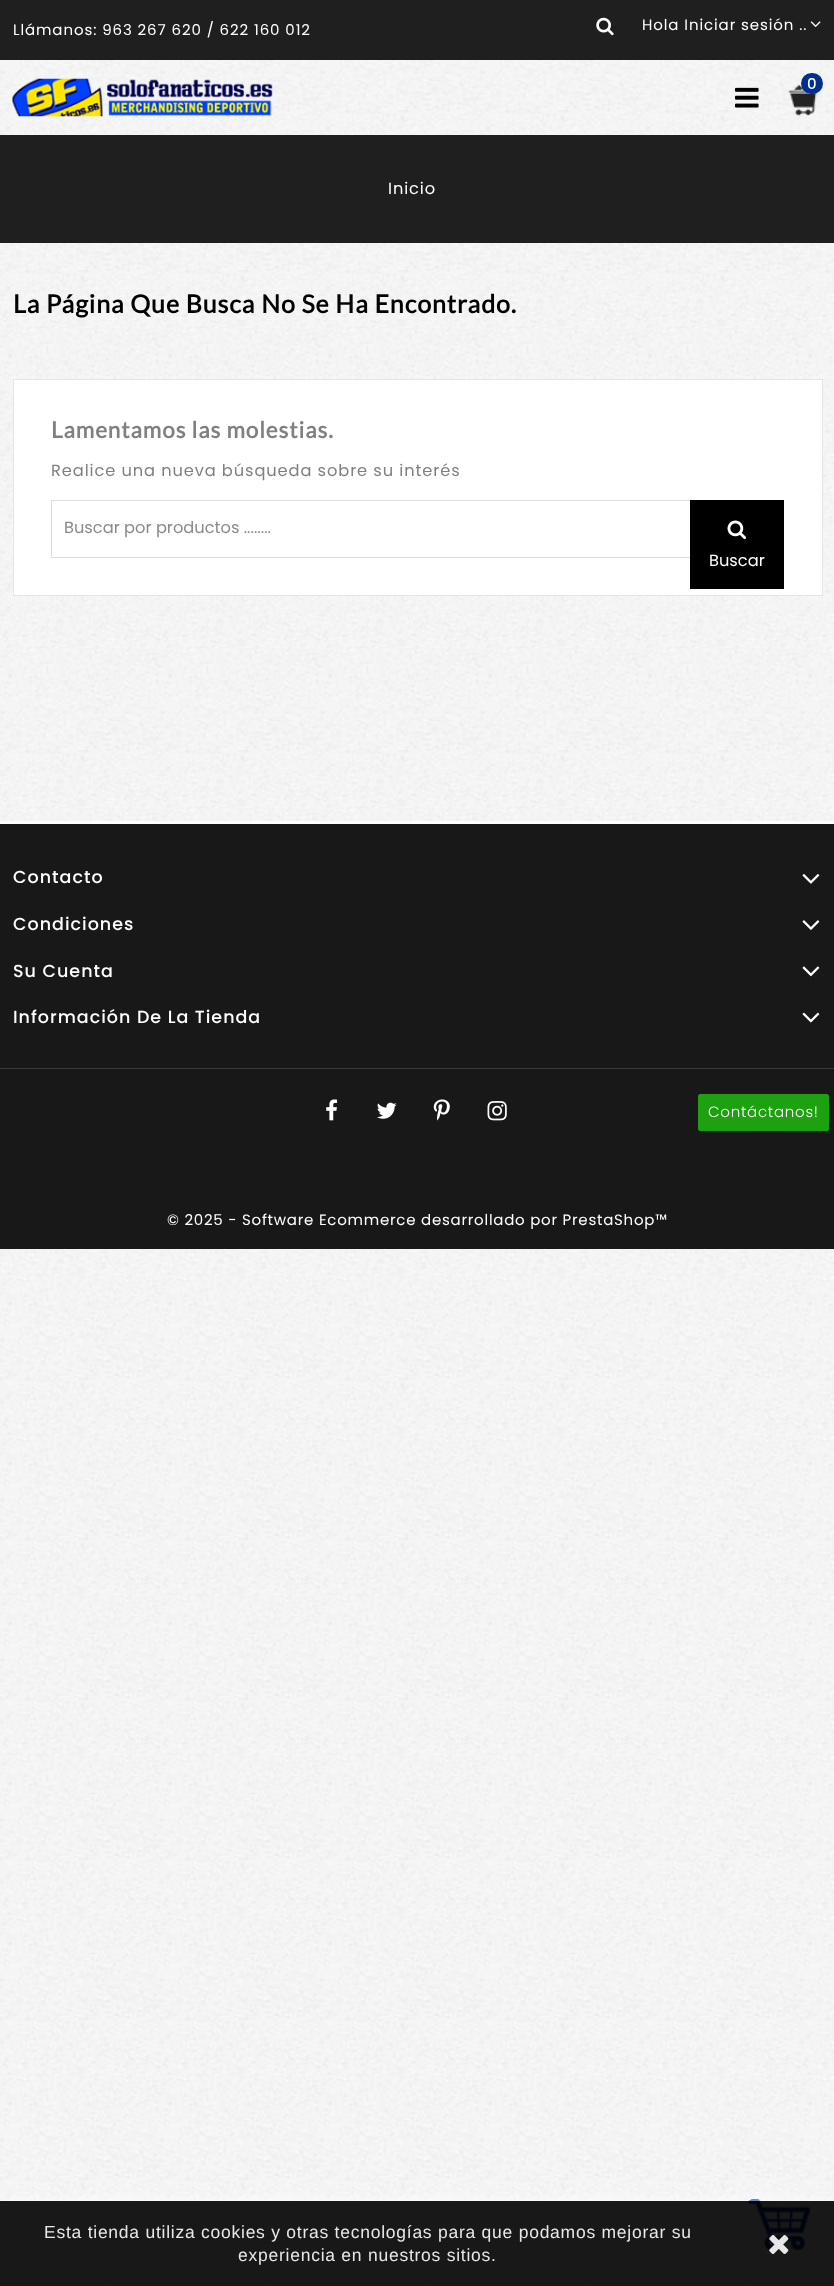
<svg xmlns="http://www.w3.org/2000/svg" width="834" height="2286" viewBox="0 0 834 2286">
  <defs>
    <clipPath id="clip1"><path d="M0 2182H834V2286H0ZM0 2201H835V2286H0Z" clip-rule="evenodd"/></clipPath>
    <filter id="blur1" x="-50%" y="-200%" width="200%" height="500%"><feGaussianBlur stdDeviation="6"/></filter>
  </defs>
  <rect width="100%" height="100%" fill="#ffffff"/>
  <image x="0" y="60" width="834" height="2226" href="img1.png"/>
  <rect x="0" y="0" width="834" height="60" fill="#1f1f1f"/>
  <text x="13" y="35" font-family="Poppins" font-size="15" letter-spacing="0.9" fill="#ffffff">Llámanos: 963 267 620 / 622 160 012</text>
  <image x="596" y="17" width="18" height="19" href="img2.png"/>
  <text x="642" y="30" font-family="Poppins" font-size="15" letter-spacing="0.9" fill="#ffffff">Hola Iniciar sesión ..</text>
  <image x="810" y="21" width="11" height="6" href="img3.png"/>
  <image x="12" y="78" width="261" height="39" href="img4.png"/>
  <image x="788" y="84" width="29" height="32" href="img5.png"/>
  <rect x="801" y="73" width="22" height="21" rx="10.5" fill="#00308f"/>
  <text x="807" y="89" font-family="Poppins" font-size="15" font-weight="500" letter-spacing="0.75" fill="#ffffff">0</text>
  <image x="735" y="87" width="24" height="21" href="img6.png"/>
  <rect x="0" y="135" width="834" height="108" fill="#1f1f1f"/>
  <text x="388" y="194" font-family="Poppins" font-size="16.25" letter-spacing="0.9" fill="#ffffff">Inicio</text>
  <text x="13" y="313" font-family="Lato" font-size="25" font-weight="bold" letter-spacing="0.9" fill="#000000">La Página Que Busca No Se Ha Encontrado.</text>
  <rect x="13.5" y="379.5" width="809" height="216" fill="#ffffff" stroke="#e5e5e5"/>
  <text x="51" y="438" font-family="Lato" font-size="22.5" font-weight="bold" letter-spacing="0.9" fill="#808080">Lamentamos las molestias.</text>
  <text x="51" y="476" font-family="Poppins" font-size="16.25" letter-spacing="0.9" fill="#808080">Realice una nueva búsqueda sobre su interés</text>
  <rect x="51.5" y="500.5" width="732" height="57" fill="none" stroke="#dddddd"/>
  <text x="64" y="533" font-family="Poppins" font-size="16.25" fill="#8a8a8a">Buscar por productos ........</text>
  <rect x="690" y="500" width="94" height="89" fill="#000000"/>
  <image x="727" y="520" width="20" height="20" href="img7.png"/>
  <text x="709" y="566" font-family="Poppins" font-size="16.25" fill="#ffffff">Buscar</text>
  <rect x="0" y="824" width="834" height="425" fill="#181818"/>
  <rect x="0" y="821" width="834" height="3" fill="#ffffff"/>
  <text x="13" y="883" font-family="Poppins" font-size="17.5" font-weight="500" letter-spacing="1" fill="#ffffff">Contacto</text>
  <image x="802" y="874" width="18" height="10" href="img8.png"/>
  <text x="13" y="930" font-family="Poppins" font-size="17.5" font-weight="500" letter-spacing="1" fill="#ffffff">Condiciones</text>
  <image x="802" y="920" width="18" height="10" href="img9.png"/>
  <text x="13" y="977" font-family="Poppins" font-size="17.5" font-weight="500" letter-spacing="1" fill="#ffffff">Su Cuenta</text>
  <image x="802" y="966" width="18" height="11" href="img10.png"/>
  <text x="13" y="1023" font-family="Poppins" font-size="17.5" font-weight="500" letter-spacing="1" fill="#ffffff">Información De La Tienda</text>
  <image x="802" y="1012" width="18" height="11" href="img11.png"/>
  <rect x="698" y="1094" width="131" height="37" rx="2.5" fill="#1da110"/>
  <text x="708" y="1117" font-family="Poppins" font-size="15" font-weight="300" letter-spacing="0.75" fill="#ffffff">Contáctanos!</text>
  <image x="748" y="2199" width="62" height="51" href="img17.png"/>
  <g clip-path="url(#clip1)">
    <rect x="0" y="2201" width="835" height="85" fill="#ffffff" fill-opacity="0.9" filter="url(#blur1)"/>
  </g>
  <rect x="0" y="2201" width="834" height="85" fill="#000000" fill-opacity="0.9"/>
  <text x="44" y="2238" font-family="Liberation Sans" font-size="17.5" letter-spacing="0.75" fill="#e8e8e8">Esta tienda utiliza cookies y otras tecnologías para que podamos mejorar su</text>
  <text x="238" y="2261" font-family="Liberation Sans" font-size="17.5" letter-spacing="0.75" fill="#e8e8e8">experiencia en nuestros sitios.</text>
  <image x="769" y="2235" width="20" height="19" href="img12.png"/>
  <rect x="0" y="1068" width="834" height="1" fill="#3a3a3a"/>
  <image x="326" y="1099" width="12" height="22" href="img13.png"/>
  <image x="377" y="1102" width="20" height="17" href="img14.png"/>
  <image x="433" y="1099" width="17" height="22" href="img15.png"/>
  <image x="487" y="1101" width="20" height="20" href="img16.png"/>
  <text x="167" y="1225" font-family="Poppins" font-size="15" letter-spacing="0.75" fill="#ffffff">© 2025 - Software Ecommerce desarrollado por PrestaShop™</text>
</svg>
